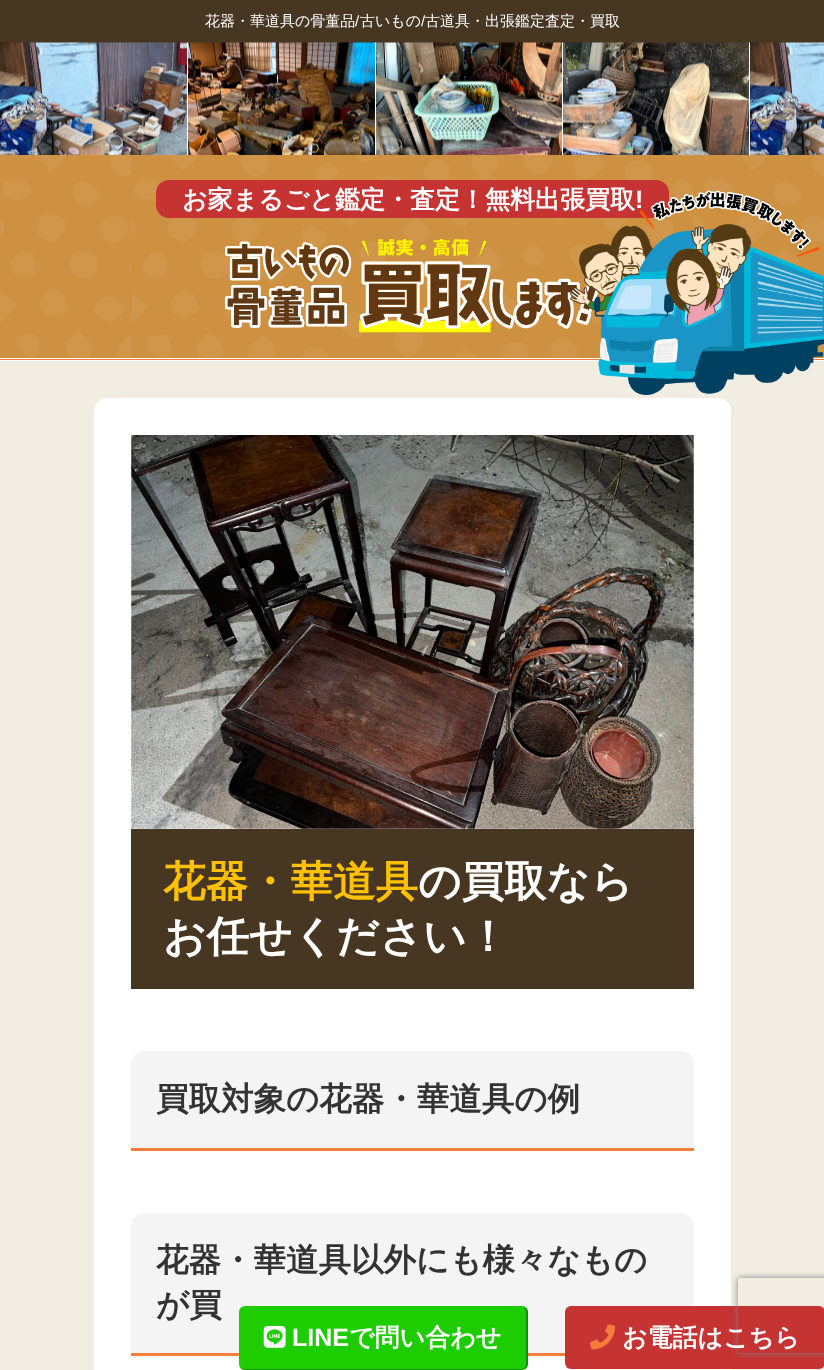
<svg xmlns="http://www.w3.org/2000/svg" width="824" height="1370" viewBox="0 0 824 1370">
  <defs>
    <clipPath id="clip1"><path d="M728 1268H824V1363H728ZM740.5 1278H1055.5C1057 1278 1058 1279 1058 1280.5V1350.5C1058 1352 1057 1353 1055.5 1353H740.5C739 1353 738 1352 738 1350.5V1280.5C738 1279 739 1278 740.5 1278Z" clip-rule="evenodd"/></clipPath>
    <filter id="blur1" x="-50%" y="-200%" width="200%" height="500%"><feGaussianBlur stdDeviation="3"/></filter>
  </defs>
  <rect width="100%" height="100%" fill="#f1ede2"/>
  <rect x="0" y="0" width="824" height="43" fill="#473722"/>
  <text x="205" y="26" font-family="WenQuanYi Zen Hei" font-size="15" font-weight="500" fill="#ffffff">花器・華道具の骨董品</text>
  <text x="355" y="26" font-family="Liberation Sans" font-size="15" fill="#ffffff">/</text>
  <text x="360" y="26" font-family="WenQuanYi Zen Hei" font-size="15" font-weight="500" fill="#ffffff">古いもの</text>
  <text x="421" y="26" font-family="Liberation Sans" font-size="15" fill="#ffffff">/</text>
  <text x="425" y="26" font-family="WenQuanYi Zen Hei" font-size="15" font-weight="500" fill="#ffffff">古道具・出張鑑定査定・買取</text>
  <image x="0" y="42" width="824" height="113" href="img1.png"/>
  <rect x="0" y="155" width="824" height="203" fill="#ce9141"/>
  <image x="0" y="155" width="824" height="203" href="img2.png"/>
  <rect x="131" y="155" width="563" height="203" fill="#ce9141"/>
  <image x="131" y="155" width="563" height="203" href="img3.png"/>
  <rect x="156" y="180" width="513" height="38" rx="13" fill="#c63333"/>
  <text x="182" y="208" font-family="WenQuanYi Zen Hei" font-size="25" font-weight="bold" fill="#ffffff">お家まるごと鑑定・査定！無料出張買取</text>
  <text x="635" y="208" font-family="Liberation Sans" font-size="25" font-weight="bold" fill="#ffffff">!</text>
  <image x="225" y="239" width="374" height="94" href="img5.png"/>
  <rect x="0" y="358" width="824" height="3" fill="#ffffff"/>
  <rect x="0" y="359" width="824" height="1" fill="#f37d3d"/>
  <image x="570" y="190" width="254" height="205" href="img4.png"/>
  <rect x="94" y="398" width="637" height="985" rx="13" fill="#ffffff"/>
  <image x="131" y="435" width="563" height="394" href="img6.png"/>
  <rect x="131" y="829" width="563" height="160" fill="#473722"/>
  <text x="163" y="896" font-family="WenQuanYi Zen Hei" font-size="42.5" font-weight="bold" fill="#ffc000">花器・華道具</text>
  <text x="418" y="896" font-family="WenQuanYi Zen Hei" font-size="42.5" font-weight="bold" fill="#ffffff">の買取なら</text>
  <text x="163" y="951" font-family="WenQuanYi Zen Hei" font-size="42.5" font-weight="bold" fill="#ffffff">お任せください！</text>
  <path d="M144 1051H681C688 1051 694 1057 694 1064V1150H131V1064C131 1057 137 1051 144 1051Z" fill="#f4f4f4"/>
  <rect x="131" y="1148" width="563" height="3" fill="#f37d3d"/>
  <text x="156" y="1110" font-family="WenQuanYi Zen Hei" font-size="32.5" font-weight="bold" fill="#333333">買取対象の花器・華道具の例</text>
  <path d="M144 1213H681C688 1213 694 1219 694 1226V1355H131V1226C131 1219 137 1213 144 1213Z" fill="#f4f4f4"/>
  <rect x="131" y="1353" width="434" height="3" fill="#f37d3d"/>
  <text x="156" y="1271" font-family="WenQuanYi Zen Hei" font-size="32.5" font-weight="bold" fill="#333333">花器・華道具以外にも様々なもの</text>
  <text x="156" y="1316" font-family="WenQuanYi Zen Hei" font-size="32.5" font-weight="bold" fill="#333333">が買</text>
  <rect x="565" y="1306" width="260" height="63" rx="6" fill="#c63333"/>
  <g clip-path="url(#clip1)">
    <rect x="738" y="1278" width="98" height="75" rx="2.5" fill="#808080" filter="url(#blur1)"/>
  </g>
  <rect x="239" y="1306" width="289" height="64" rx="6" fill="#1dcd00"/>
  <path d="M245 1306H521C525 1306 528 1309 528 1312V1364C528 1367 525 1370 521 1370H245C242 1370 239 1367 239 1364V1312C239 1309 242 1306 245 1306ZM245 1306H521C524 1306 526 1309 526 1312V1364C526 1367 524 1369 521 1369H245C242 1369 239 1367 239 1364V1312C239 1309 242 1306 245 1306Z" fill="#000000" fill-opacity="0.3" fill-rule="evenodd"/>
  <image x="263" y="1325" width="23" height="23" href="img7.png"/>
  <text x="292" y="1346" font-family="Liberation Sans" font-size="25" font-weight="bold" fill="#ffffff">LINE</text>
  <text x="349" y="1346" font-family="WenQuanYi Zen Hei" font-size="25" font-weight="bold" fill="#ffffff">で問い合わせ</text>
  <image x="590" y="1324" width="25" height="26" href="img8.png"/>
  <text x="622" y="1346" font-family="WenQuanYi Zen Hei" font-size="25" font-weight="bold" fill="#ffffff">お電話はこちら</text>
</svg>
